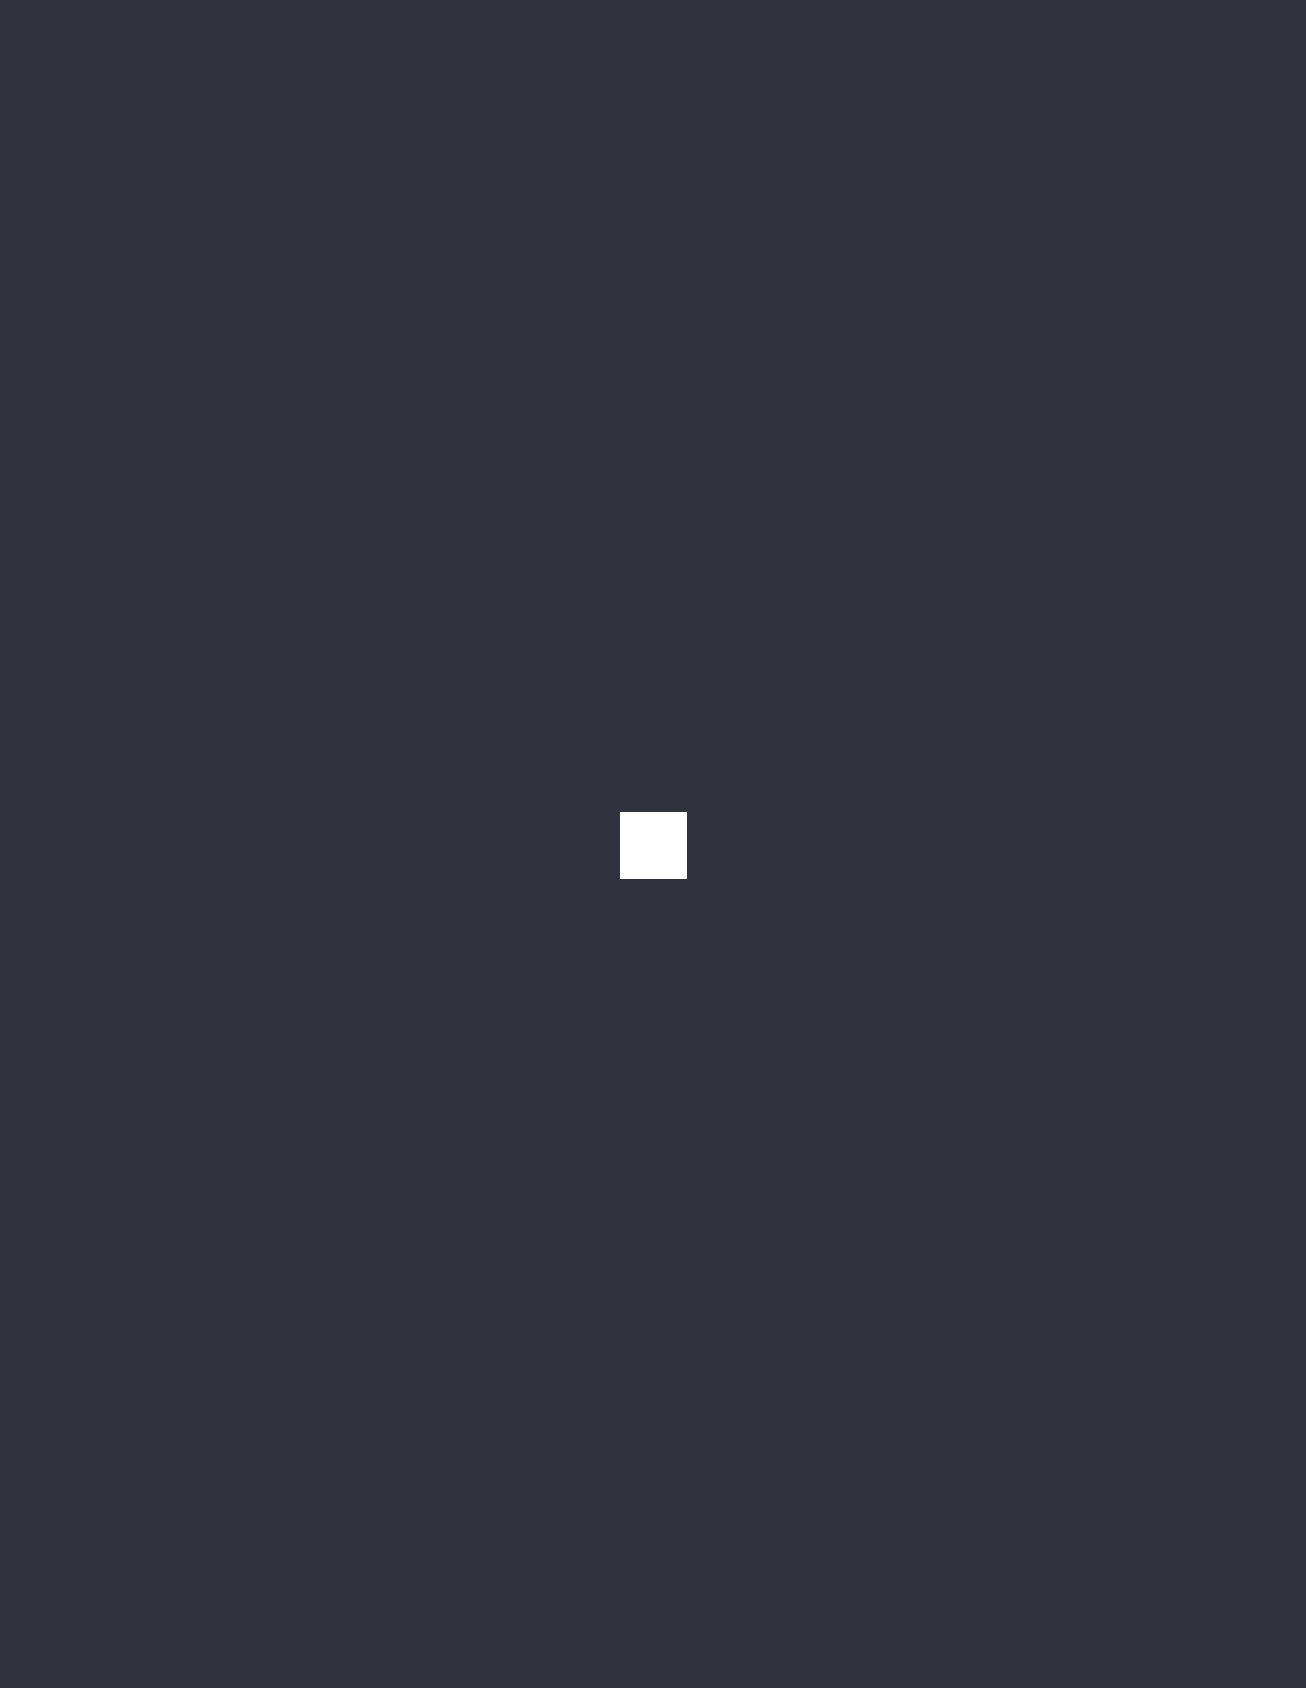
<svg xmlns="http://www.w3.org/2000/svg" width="1306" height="1688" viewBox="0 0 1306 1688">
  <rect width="100%" height="100%" fill="#30323e"/>
  <rect x="620" y="812" width="67" height="67" fill="#ffffff"/>
</svg>
